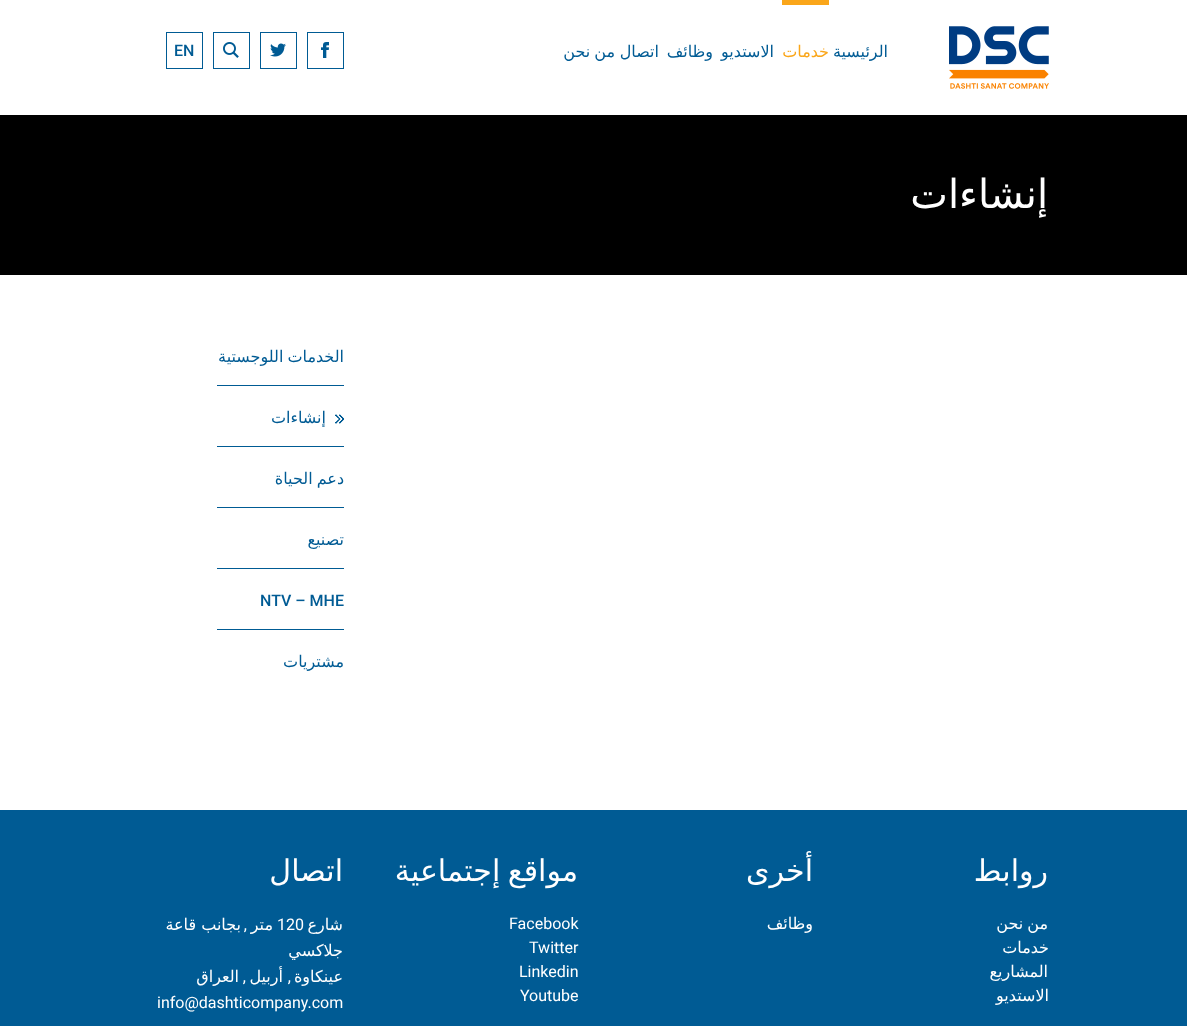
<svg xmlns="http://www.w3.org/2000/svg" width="1187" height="1026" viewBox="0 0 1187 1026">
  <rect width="100%" height="100%" fill="#ffffff"/>
  <image x="949" y="26" width="100" height="63" href="img1.png"/>
  <text x="888" y="57" font-family="DejaVu Sans" font-size="16" direction="rtl" fill="#005b94">الرئيسية</text>
  <rect x="782" y="0" width="47" height="5" fill="#faa61a"/>
  <text x="829" y="57" font-family="DejaVu Sans" font-size="16" direction="rtl" fill="#faa61a">خدمات</text>
  <text x="774" y="57" font-family="DejaVu Sans" font-size="16" direction="rtl" fill="#005b94">الاستديو</text>
  <text x="713" y="57" font-family="DejaVu Sans" font-size="16" direction="rtl" fill="#005b94">وظائف</text>
  <text x="659" y="57" font-family="DejaVu Sans" font-size="16" direction="rtl" fill="#005b94">اتصال</text>
  <text x="615" y="57" word-spacing="-1" font-family="DejaVu Sans" font-size="16" direction="rtl" fill="#005b94">من نحن</text>
  <rect x="307.5" y="32.5" width="36" height="36" fill="none" stroke="#005b94"/>
  <image x="321" y="42" width="8" height="16" href="img2.png"/>
  <rect x="260.5" y="32.5" width="36" height="36" fill="none" stroke="#005b94"/>
  <image x="270" y="43" width="16" height="14" href="img3.png"/>
  <rect x="213.5" y="32.5" width="36" height="36" fill="none" stroke="#005b94"/>
  <image x="223" y="42" width="16" height="16" href="img4.png"/>
  <rect x="166.5" y="32.5" width="36" height="36" fill="none" stroke="#005b94"/>
  <text x="174" y="56" font-family="Roboto" font-size="16" font-weight="500" fill="#005b94">EN</text>
  <rect x="0" y="115" width="1187" height="160" fill="#000000"/>
  <text x="1048" y="208" font-family="DejaVu Sans" font-size="40" direction="rtl" fill="#ffffff">إنشاءات</text>
  <rect x="217" y="385" width="127" height="1" fill="#005b94"/>
  <text x="344" y="362" word-spacing="-1" font-family="DejaVu Sans" font-size="16" direction="rtl" fill="#005b94">الخدمات اللوجستية</text>
  <image x="335" y="414" width="9" height="10" href="img5.png"/>
  <rect x="217" y="446" width="127" height="1" fill="#005b94"/>
  <text x="326" y="423" font-family="DejaVu Sans" font-size="16" direction="rtl" fill="#005b94">إنشاءات</text>
  <rect x="217" y="507" width="127" height="1" fill="#005b94"/>
  <text x="344" y="484" word-spacing="-1" font-family="DejaVu Sans" font-size="16" direction="rtl" fill="#005b94">دعم الحياة</text>
  <rect x="217" y="568" width="127" height="1" fill="#005b94"/>
  <text x="344" y="545" font-family="DejaVu Sans" font-size="16" direction="rtl" fill="#005b94">تصنيع</text>
  <rect x="217" y="629" width="127" height="1" fill="#005b94"/>
  <text x="260" y="606" font-family="Roboto" font-size="16" font-weight="500" fill="#005b94">NTV – MHE</text>
  <text x="344" y="667" font-family="DejaVu Sans" font-size="16" direction="rtl" fill="#005b94">مشتريات</text>
  <rect x="0" y="810" width="1187" height="216" fill="#005b94"/>
  <text x="1048" y="881" font-family="DejaVu Sans" font-size="30" direction="rtl" fill="#ffffff">روابط</text>
  <text x="1048" y="929" word-spacing="-1" font-family="DejaVu Sans" font-size="16" direction="rtl" fill="#ffffff">من نحن</text>
  <text x="1049" y="953" font-family="DejaVu Sans" font-size="16" direction="rtl" fill="#ffffff">خدمات</text>
  <text x="1048" y="977" font-family="DejaVu Sans" font-size="16" direction="rtl" fill="#ffffff">المشاريع</text>
  <text x="1049" y="1001" font-family="DejaVu Sans" font-size="16" direction="rtl" fill="#ffffff">الاستديو</text>
  <text x="813" y="881" font-family="DejaVu Sans" font-size="30" direction="rtl" fill="#ffffff">أخرى</text>
  <text x="813" y="929" font-family="DejaVu Sans" font-size="16" direction="rtl" fill="#ffffff">وظائف</text>
  <text x="578" y="881" word-spacing="-2" font-family="DejaVu Sans" font-size="30" direction="rtl" fill="#ffffff">مواقع إجتماعية</text>
  <text x="509" y="929" font-family="Roboto" font-size="16" fill="#ffffff">Facebook</text>
  <text x="529" y="953" font-family="Roboto" font-size="16" fill="#ffffff">Twitter</text>
  <text x="519" y="977" font-family="Roboto" font-size="16" fill="#ffffff">Linkedin</text>
  <text x="520" y="1001" font-family="Roboto" font-size="16" fill="#ffffff">Youtube</text>
  <text x="343" y="881" font-family="DejaVu Sans" font-size="30" direction="rtl" fill="#ffffff">اتصال</text>
  <text x="343" y="930" font-family="DejaVu Sans" font-size="16" direction="rtl" fill="#ffffff">شارع</text>
  <text x="277" y="930" font-family="Roboto" font-size="16" fill="#ffffff">120</text>
  <text x="273" y="930" font-family="DejaVu Sans" font-size="16" direction="rtl" fill="#ffffff">متر</text>
  <text x="247" y="930" font-family="Roboto" font-size="16" direction="rtl" fill="#ffffff">,</text>
  <text x="241" y="930" font-family="DejaVu Sans" font-size="16" direction="rtl" fill="#ffffff">بجانب قاعة</text>
  <text x="343" y="956" font-family="DejaVu Sans" font-size="16" direction="rtl" fill="#ffffff">جلاكسي</text>
  <text x="343" y="982" font-family="DejaVu Sans" font-size="16" direction="rtl" fill="#ffffff">عينكاوة</text>
  <text x="291" y="982" font-family="Roboto" font-size="16" direction="rtl" fill="#ffffff">,</text>
  <text x="283" y="982" font-family="DejaVu Sans" font-size="16" direction="rtl" fill="#ffffff">أربيل</text>
  <text x="246" y="982" font-family="Roboto" font-size="16" direction="rtl" fill="#ffffff">,</text>
  <text x="239" y="982" font-family="DejaVu Sans" font-size="16" direction="rtl" fill="#ffffff">العراق</text>
  <text x="157" y="1008" font-family="Roboto" font-size="16" fill="#ffffff">info@dashticompany.com</text>
</svg>
